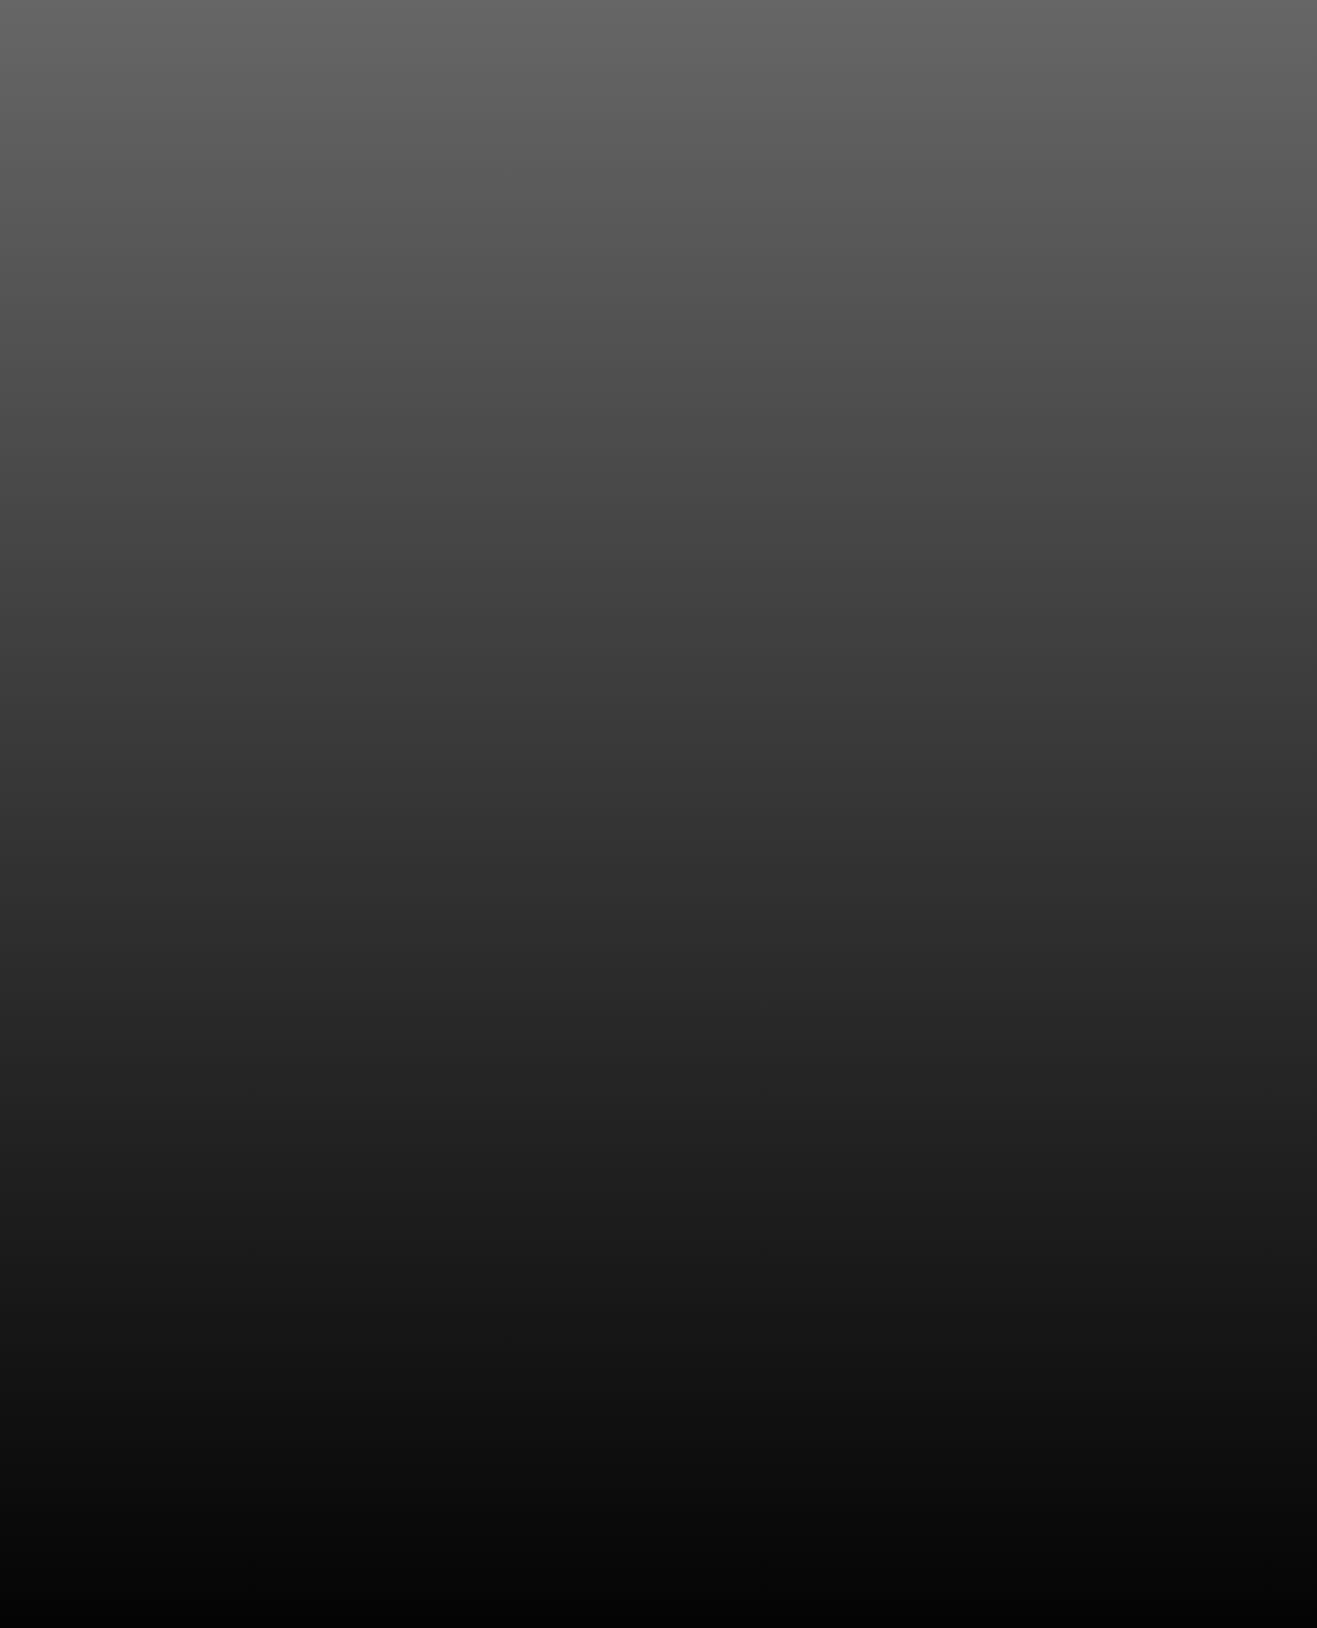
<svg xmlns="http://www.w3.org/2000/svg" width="1317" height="1628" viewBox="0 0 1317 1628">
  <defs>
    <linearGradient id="g1" gradientUnits="userSpaceOnUse" x1="659" y1="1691" x2="659" y2="0"><stop offset="0" stop-color="#000000"/><stop offset="1" stop-color="#666666"/></linearGradient>
  </defs>
  <rect width="100%" height="100%" fill="#ffffff"/>
  <rect x="0" y="0" width="1317" height="1628" fill="url(#g1)"/>
</svg>
